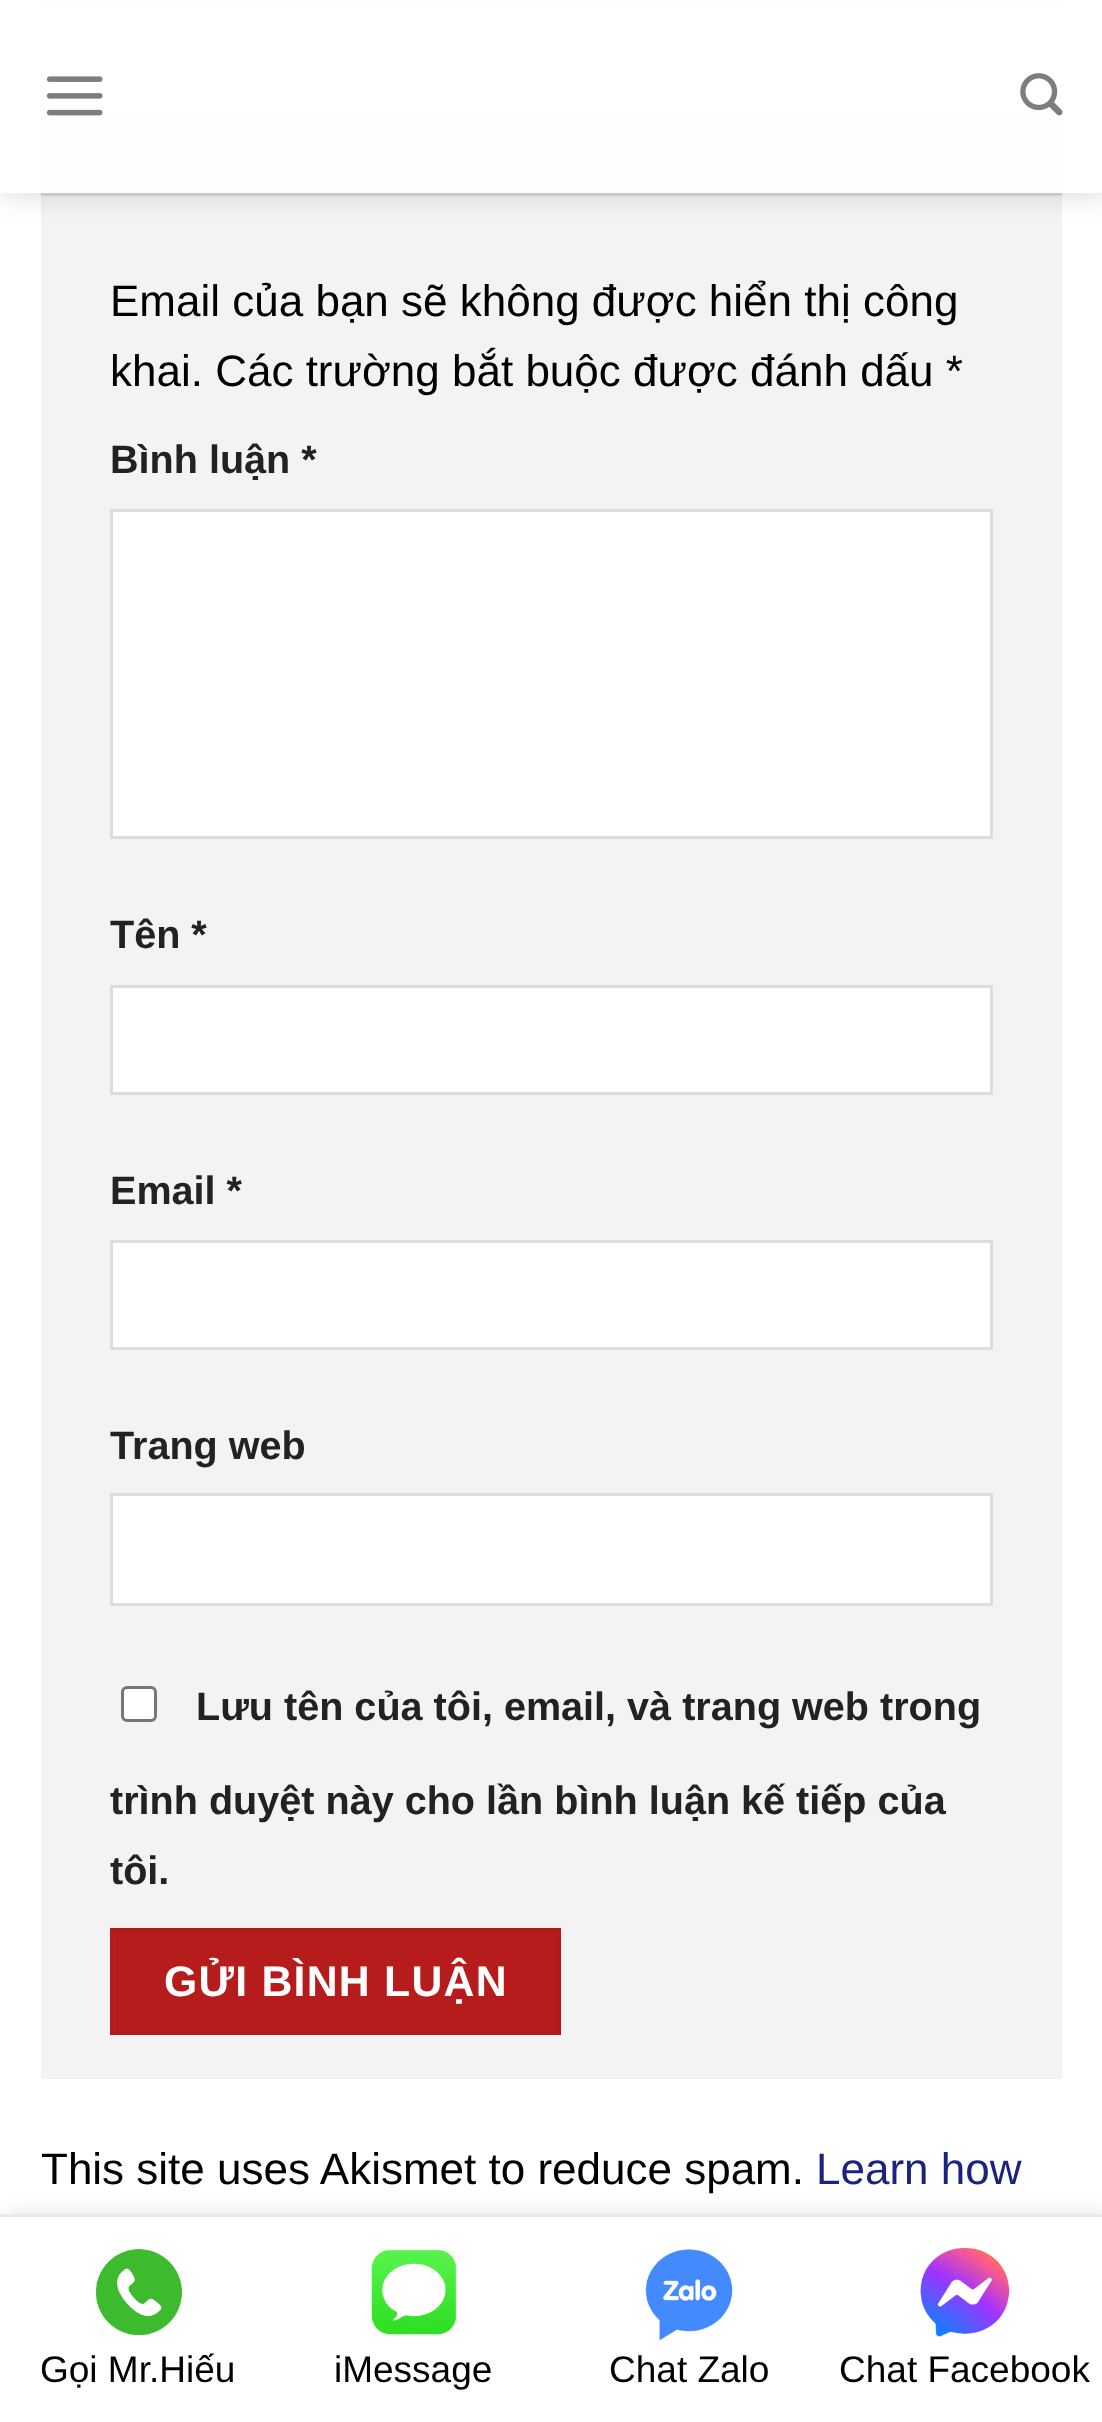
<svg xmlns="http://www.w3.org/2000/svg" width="1102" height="2422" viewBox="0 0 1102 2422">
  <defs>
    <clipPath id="clip1"><path d="M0 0H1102V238H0ZM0 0H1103V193H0Z" clip-rule="evenodd"/></clipPath>
    <filter id="blur1" x="-50%" y="-200%" width="200%" height="500%"><feGaussianBlur stdDeviation="14"/></filter>
    <filter id="blur2" x="-50%" y="-200%" width="200%" height="500%"><feGaussianBlur stdDeviation="12.5"/></filter>
  </defs>
  <rect width="100%" height="100%" fill="#ffffff"/>
  <rect x="41" y="0" width="1021" height="3" fill="#ececec"/>
  <rect x="41" y="116" width="1021" height="1963" fill="#f3f3f3"/>
  <g clip-path="url(#clip1)">
    <rect x="3" y="3" width="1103" height="192" fill="#000000" fill-opacity="0.15" filter="url(#blur1)"/>
  </g>
  <rect x="0" y="0" width="1102" height="193" fill="#ffffff" fill-opacity="0.9"/>
  <image x="46" y="76" width="57" height="40" href="img1.png"/>
  <image x="1020" y="73" width="43" height="43" href="img2.png"/>
  <rect x="41" y="193" width="1021" height="3" fill="#000000" fill-opacity="0.1"/>
  <text x="110" y="316" font-family="Liberation Sans" font-size="44" fill="#000000">Email của bạn sẽ không được hiển thị công</text>
  <text x="110" y="386" font-family="Liberation Sans" font-size="44" fill="#000000">khai. Các trường bắt buộc được đánh dấu *</text>
  <text x="110" y="473" font-family="Liberation Sans" font-size="39.6" font-weight="bold" fill="#222222">Bình luận *</text>
  <rect x="111.5" y="510.5" width="880" height="327" fill="#ffffff" stroke="#dddddd" stroke-width="3"/>
  <text x="110" y="948" font-family="Liberation Sans" font-size="39.6" font-weight="bold" fill="#222222">Tên *</text>
  <rect x="111.5" y="986.5" width="880" height="107" fill="#ffffff" stroke="#dddddd" stroke-width="3"/>
  <text x="110" y="1204" font-family="Liberation Sans" font-size="39.6" font-weight="bold" fill="#222222">Email *</text>
  <rect x="111.5" y="1241.5" width="880" height="107" fill="#ffffff" stroke="#dddddd" stroke-width="3"/>
  <text x="110" y="1459" font-family="Liberation Sans" font-size="39.6" font-weight="bold" fill="#222222">Trang web</text>
  <rect x="111.5" y="1494.5" width="880" height="110" fill="#ffffff" stroke="#dddddd" stroke-width="3"/>
  <rect x="122.5" y="1687.5" width="33" height="33" rx="4.5" fill="#ffffff" stroke="#767676" stroke-width="3"/>
  <text x="196" y="1720" font-family="Liberation Sans" font-size="39.6" font-weight="bold" fill="#222222">Lưu tên của tôi, email, và trang web trong</text>
  <text x="110" y="1814" font-family="Liberation Sans" font-size="39.6" font-weight="bold" fill="#222222">trình duyệt này cho lần bình luận kế tiếp của</text>
  <text x="110" y="1884" font-family="Liberation Sans" font-size="39.6" font-weight="bold" fill="#222222">tôi.</text>
  <rect x="111.5" y="1929.5" width="448" height="104" fill="#b71c1c" stroke="#ae1b1b" stroke-width="3"/>
  <text x="164" y="1996" font-family="Liberation Sans" font-size="42.75" font-weight="bold" letter-spacing="1.25" fill="#ffffff">GỬI BÌNH LUẬN</text>
  <text x="41" y="2184" font-family="Liberation Sans" font-size="44" fill="#000000">This site uses Akismet to reduce spam.</text>
  <text x="816" y="2184" font-family="Liberation Sans" font-size="44" fill="#1a237e">Learn how</text>
  <rect x="6" y="2217" width="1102" height="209" fill="#dedede" filter="url(#blur2)"/>
  <rect x="0" y="2217" width="1102" height="205" fill="#ffffff"/>
  <rect x="0" y="2214" width="1102" height="3" fill="#eaeaea"/>
  <image x="96" y="2249" width="86" height="86" href="img3.png"/>
  <text x="40" y="2382" font-family="Liberation Sans" font-size="37" fill="#000000">Gọi Mr.Hiếu</text>
  <image x="371" y="2249" width="86" height="86" href="img4.png"/>
  <text x="334" y="2382" font-family="Liberation Sans" font-size="37" fill="#000000">iMessage</text>
  <image x="645" y="2249" width="88" height="92" href="img5.png"/>
  <text x="609" y="2382" font-family="Liberation Sans" font-size="37" fill="#000000">Chat Zalo</text>
  <image x="920" y="2248" width="90" height="89" href="img6.png"/>
  <text x="839" y="2382" font-family="Liberation Sans" font-size="37" fill="#000000">Chat Facebook</text>
</svg>
